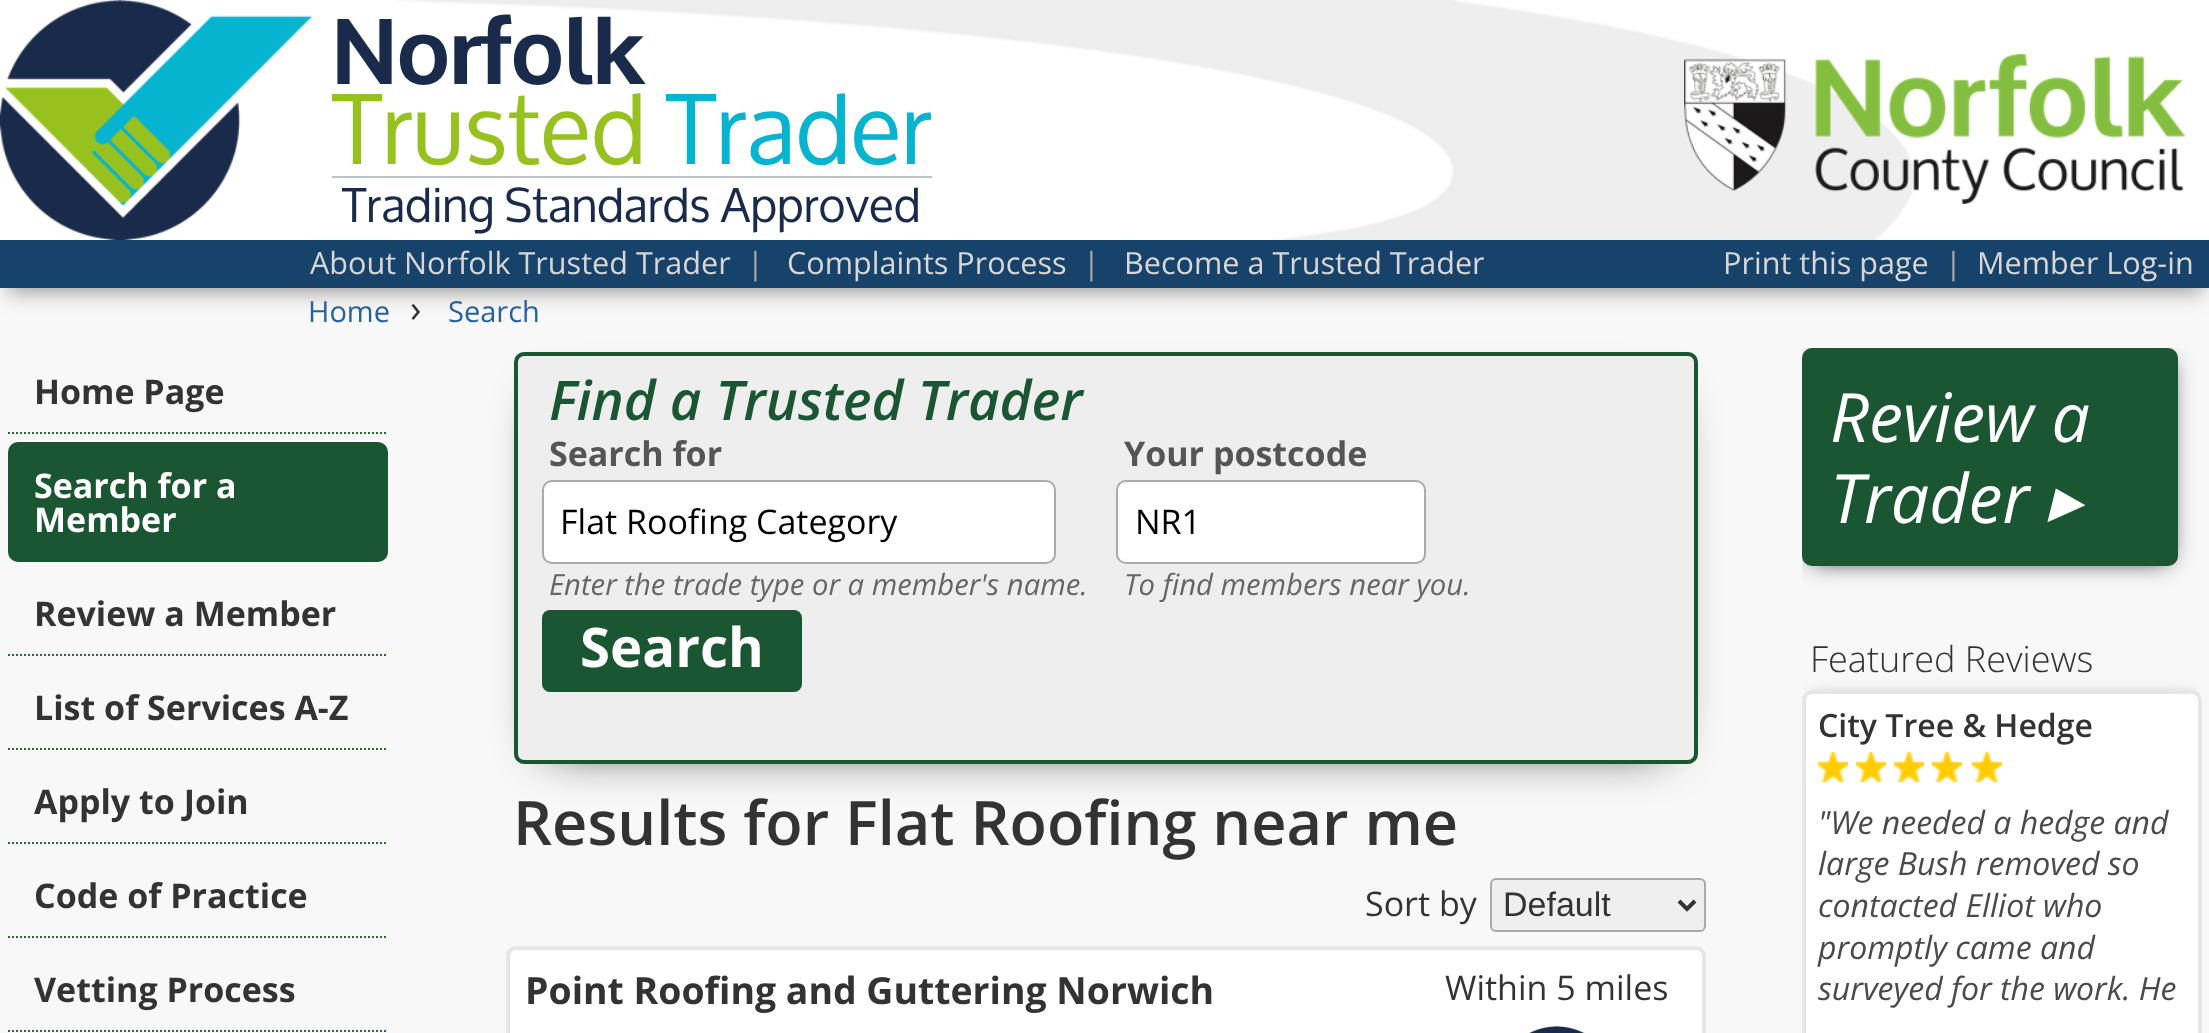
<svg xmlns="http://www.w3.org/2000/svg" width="2209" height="1033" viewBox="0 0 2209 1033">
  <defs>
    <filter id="blur1" x="-50%" y="-200%" width="200%" height="500%"><feGaussianBlur stdDeviation="10"/></filter>
    <filter id="blur2" x="-50%" y="-200%" width="200%" height="500%"><feGaussianBlur stdDeviation="25"/></filter>
    <clipPath id="clip1"><rect x="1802" y="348" width="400" height="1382"/></clipPath>
    <filter id="blur3" x="-50%" y="-200%" width="200%" height="500%"><feGaussianBlur stdDeviation="12"/></filter>
  </defs>
  <rect width="100%" height="100%" fill="#f8f8f8"/>
  <rect x="312" y="0" width="1897" height="240" fill="#ffffff"/>
  <rect x="8" y="260" width="2194" height="32" fill="#999999" filter="url(#blur1)"/>
  <image x="397" y="0" width="1519" height="240" href="img1.png"/>
  <rect x="0" y="0" width="312" height="240" fill="#ffffff"/>
  <image x="0" y="0" width="312" height="240" href="img2.png"/>
  <text x="332" y="84" font-family="Oxygen" font-size="92" font-weight="bold" fill="#1a2a4a">Norfolk</text>
  <rect x="332" y="176" width="600" height="2" fill="#bec2ca"/>
  <text x="332" y="164" font-family="Oxygen" font-size="96" fill="#96c11f">Trusted</text>
  <text x="666" y="164" font-family="Oxygen" font-size="96" fill="#06b4cf">Trader</text>
  <text x="342" y="222" font-family="Oxygen" font-size="46.75" fill="#1a2a4a">Trading Standards Approved</text>
  <image x="1684" y="54" width="502" height="150" href="img3.png"/>
  <rect x="0" y="240" width="2209" height="48" fill="#17426a"/>
  <text x="310" y="274" font-family="Open Sans" font-size="30.6" fill="#d7d7d7">About Norfolk Trusted Trader</text>
  <text x="747" y="274" font-family="Open Sans" font-size="30.6" fill="#aaaaaa">|</text>
  <text x="787" y="274" font-family="Open Sans" font-size="30.6" fill="#d7d7d7">Complaints Process</text>
  <text x="1083" y="274" font-family="Open Sans" font-size="30.6" fill="#aaaaaa">|</text>
  <text x="1124" y="274" font-family="Open Sans" font-size="30.6" fill="#d7d7d7">Become a Trusted Trader</text>
  <text x="1723" y="274" font-family="Open Sans" font-size="30.6" fill="#d7d7d7">Print this page</text>
  <text x="1945" y="274" font-family="Open Sans" font-size="30.6" fill="#aaaaaa">|</text>
  <text x="1977" y="274" font-family="Open Sans" font-size="30.6" fill="#d7d7d7">Member Log-in</text>
  <text x="308" y="322" font-family="Open Sans" font-size="29" fill="#27619f">Home</text>
  <text x="410" y="322" font-family="Open Sans" font-size="38" fill="#333333">›</text>
  <text x="448" y="322" font-family="Open Sans" font-size="29" fill="#27619f">Search</text>
  <path d="M8 433H388" fill="none" stroke="#2a6a32" stroke-width="2" stroke-dasharray="2 2"/>
  <text x="34" y="404" font-family="Open Sans" font-size="34" font-weight="bold" fill="#333333">Home Page</text>
  <rect x="9" y="443" width="378" height="118" rx="9" fill="#1a5632" stroke="#1a5632" stroke-width="2"/>
  <text x="34" y="498" font-family="Open Sans" font-size="34" font-weight="bold" fill="#ffffff">Search for a</text>
  <text x="34" y="532" font-family="Open Sans" font-size="34" font-weight="bold" fill="#ffffff">Member</text>
  <path d="M8 655H388" fill="none" stroke="#2a6a32" stroke-width="2" stroke-dasharray="2 2"/>
  <text x="34" y="626" font-family="Open Sans" font-size="34" font-weight="bold" fill="#333333">Review a Member</text>
  <path d="M8 749H388" fill="none" stroke="#2a6a32" stroke-width="2" stroke-dasharray="2 2"/>
  <text x="34" y="720" font-family="Open Sans" font-size="34" font-weight="bold" fill="#333333">List of Services A-Z</text>
  <path d="M8 843H388" fill="none" stroke="#2a6a32" stroke-width="2" stroke-dasharray="2 2"/>
  <text x="34" y="814" font-family="Open Sans" font-size="34" font-weight="bold" fill="#333333">Apply to Join</text>
  <path d="M8 937H388" fill="none" stroke="#2a6a32" stroke-width="2" stroke-dasharray="2 2"/>
  <text x="34" y="908" font-family="Open Sans" font-size="34" font-weight="bold" fill="#333333">Code of Practice</text>
  <path d="M8 1031H388" fill="none" stroke="#2a6a32" stroke-width="2" stroke-dasharray="2 2"/>
  <text x="34" y="1002" font-family="Open Sans" font-size="34" font-weight="bold" fill="#333333">Vetting Process</text>
  <rect x="548" y="402" width="1116" height="344" fill="#000000" filter="url(#blur2)"/>
  <rect x="516" y="354" width="1180" height="408" rx="8" fill="#eeeeee" stroke="#1a5632" stroke-width="4"/>
  <text x="549" y="420" font-family="Open Sans" font-size="54.5" font-weight="600" font-style="italic" fill="#1a5632">Find a Trusted Trader</text>
  <text x="549" y="466" font-family="Open Sans" font-size="34" font-weight="bold" fill="#555555">Search for</text>
  <rect x="543" y="481" width="512" height="82" rx="9" fill="#ffffff" stroke="#aaaaaa" stroke-width="2"/>
  <text x="560" y="534" font-family="Open Sans" font-size="34" fill="#000000">Flat Roofing Category</text>
  <text x="549" y="595" font-family="Open Sans" font-size="29.25" font-style="italic" fill="#666666">Enter the trade type or a member's name.</text>
  <text x="1124" y="466" font-family="Open Sans" font-size="34" font-weight="bold" fill="#555555">Your postcode</text>
  <rect x="1117" y="481" width="308" height="82" rx="9" fill="#ffffff" stroke="#aaaaaa" stroke-width="2"/>
  <text x="1135" y="534" font-family="Open Sans" font-size="34" fill="#000000">NR1</text>
  <text x="1124" y="595" font-family="Open Sans" font-size="29.25" font-style="italic" fill="#666666">To find members near you.</text>
  <rect x="543" y="611" width="258" height="80" rx="7" fill="#1a5632" stroke="#1a5632" stroke-width="2"/>
  <text x="580" y="667" font-family="Open Sans" font-size="54.5" font-weight="bold" fill="#ffffff">Search</text>
  <text x="513" y="845" font-family="Open Sans" font-size="61.25" font-weight="600" fill="#333333">Results for Flat Roofing near me</text>
  <text x="1365" y="916" font-family="Open Sans" font-size="34" fill="#333333">Sort by</text>
  <rect x="1491" y="879" width="214" height="52" rx="5" fill="#efefef" stroke="#aaaaaa" stroke-width="2"/>
  <path d="M1679 901L1687 909L1695 901" fill="none" stroke="#333333" stroke-width="4"/>
  <text x="1503" y="916" font-family="Liberation Sans" font-size="34" fill="#333333">Default</text>
  <rect x="508" y="948" width="1196" height="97" rx="8" fill="#ffffff" stroke="#e6e6e6" stroke-width="4"/>
  <text x="525" y="1004" font-family="Open Sans" font-size="37.4" font-weight="bold" fill="#333333">Point Roofing and Guttering Norwich</text>
  <text x="1445" y="1000" font-family="Open Sans" font-size="34" fill="#333333">Within 5 miles</text>
  <image x="1529" y="1026" width="56" height="7" href="img4.png"/>
  <g clip-path="url(#clip1)">
    <rect x="1812" y="362" width="356" height="198" fill="#000000" filter="url(#blur3)"/>
  </g>
  <rect x="1804" y="350" width="372" height="214" rx="8" fill="#1a5632" stroke="#1a5632" stroke-width="4"/>
  <text x="1830" y="442" font-family="Open Sans" font-size="68" font-style="italic" fill="#ffffff">Review a</text>
  <text x="1830" y="523" font-family="Open Sans" font-size="68" font-style="italic" fill="#ffffff">Trader</text>
  <text x="2047" y="523" font-family="DejaVu Sans" font-size="68" font-style="italic" fill="#ffffff">▸</text>
  <text x="1810" y="672" font-family="Open Sans" font-size="36" font-weight="300" fill="#333333">Featured Reviews</text>
  <rect x="1802" y="690" width="400" height="10" fill="#ffffff"/>
  <g clip-path="url(#clip1)">
    <rect x="1812" y="704" width="380" height="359" fill="#000000" filter="url(#blur1)"/>
  </g>
  <rect x="1804" y="692" width="396" height="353" rx="8" fill="#ffffff" stroke="#e6e6e6" stroke-width="4"/>
  <text x="1818" y="737" font-family="Open Sans" font-size="32" font-weight="600" fill="#333333">City Tree &amp; Hedge</text>
  <image x="1818" y="752" width="30" height="30" href="img5.png"/>
  <image x="1856" y="752" width="30" height="30" href="img5.png"/>
  <image x="1894" y="752" width="30" height="30" href="img5.png"/>
  <image x="1932" y="752" width="30" height="30" href="img5.png"/>
  <image x="1972" y="752" width="30" height="30" href="img5.png"/>
  <text x="1818" y="834" font-family="Open Sans" font-size="32" font-style="italic" fill="#4a4a4a">"We needed a hedge and</text>
  <text x="1818" y="875" font-family="Open Sans" font-size="32" font-style="italic" fill="#4a4a4a">large Bush removed so</text>
  <text x="1818" y="917" font-family="Open Sans" font-size="32" font-style="italic" fill="#4a4a4a">contacted Elliot who</text>
  <text x="1818" y="959" font-family="Open Sans" font-size="32" font-style="italic" fill="#4a4a4a">promptly came and</text>
  <text x="1818" y="1000" font-family="Open Sans" font-size="32" font-style="italic" fill="#4a4a4a">surveyed for the work. He</text>
</svg>
